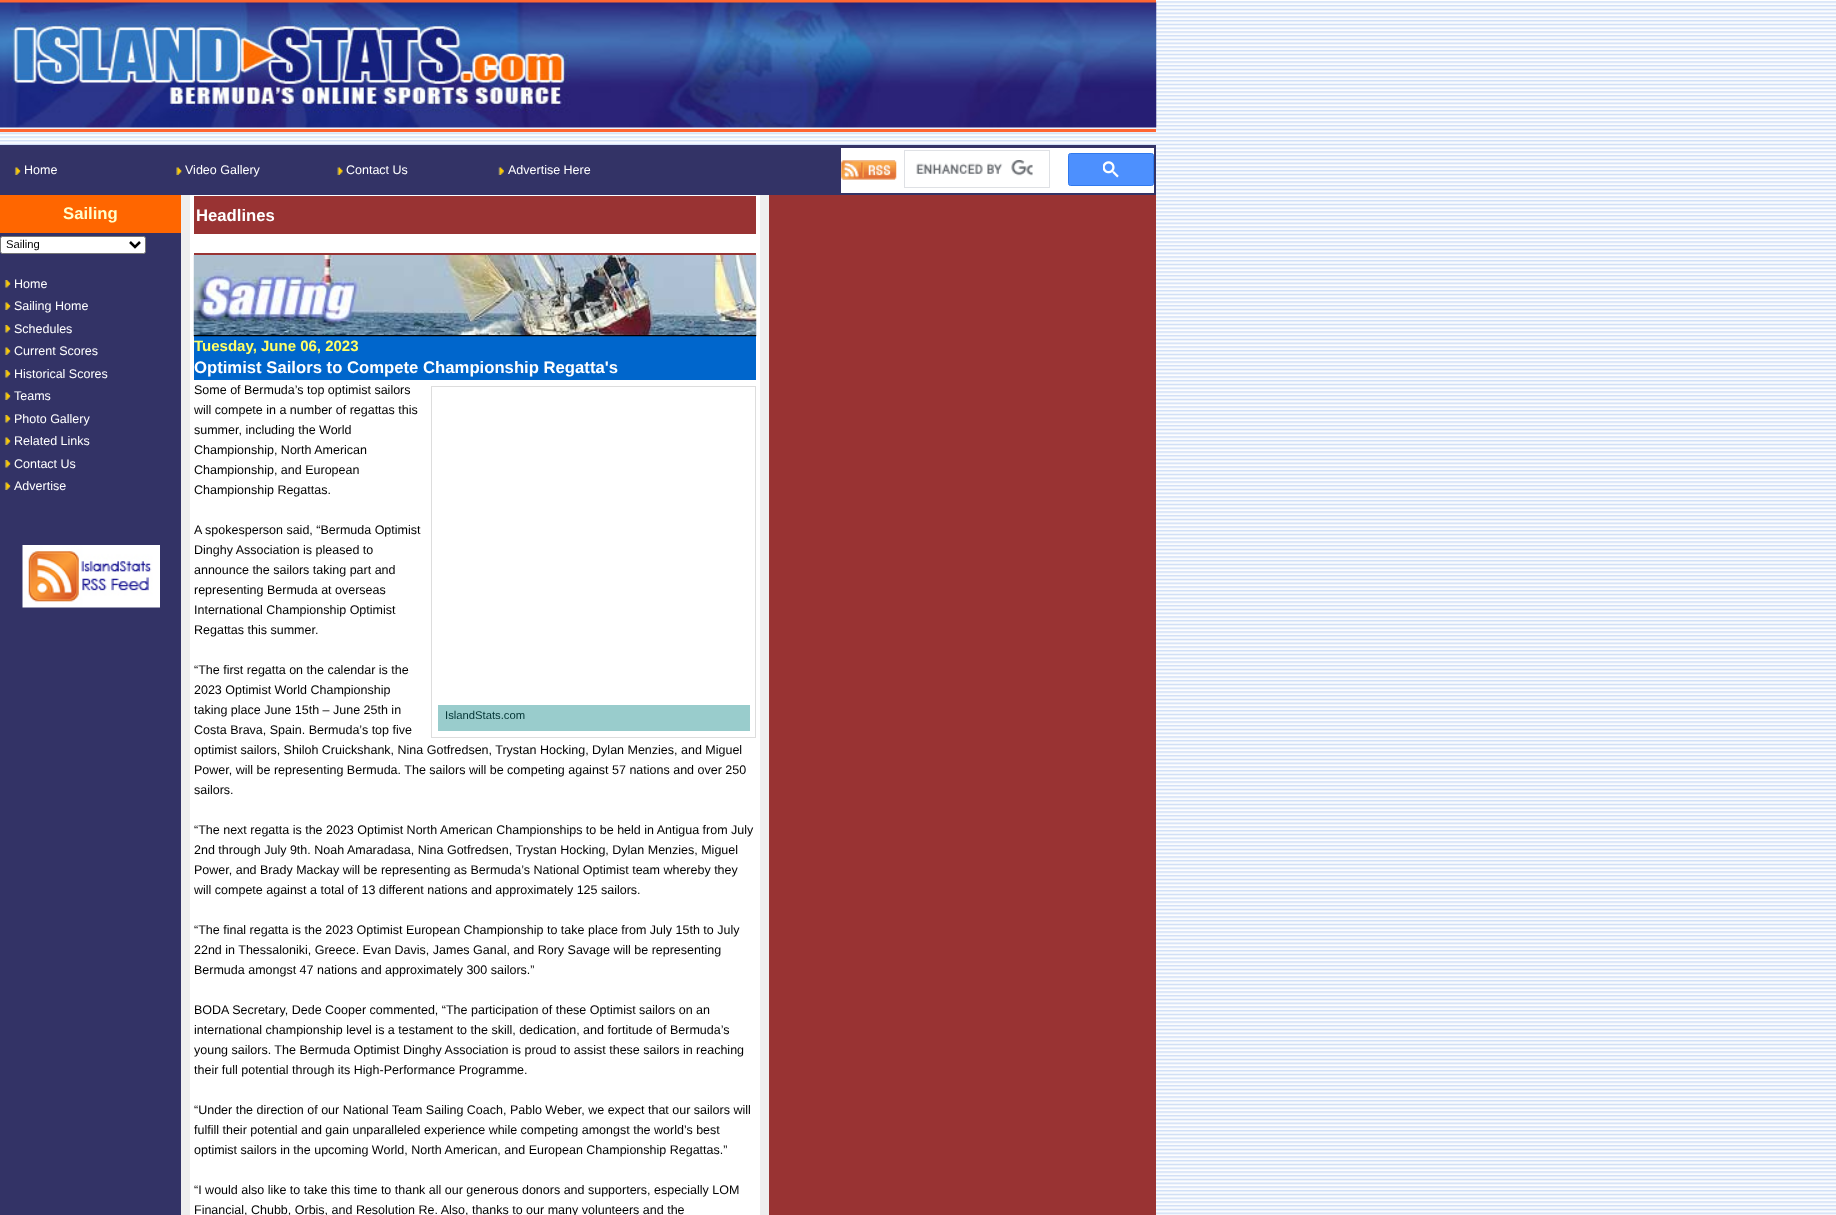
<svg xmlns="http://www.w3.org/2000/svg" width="1836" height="1215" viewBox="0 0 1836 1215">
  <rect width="100%" height="100%" fill="#ffffff"/>
  <image x="0" y="1" width="1836" height="1214" href="img1.png"/>
  <rect x="0" y="0" width="1156" height="3" fill="#ff6633"/>
  <image x="0" y="2" width="1157" height="126" href="img2.png"/>
  <rect x="0" y="129" width="1156" height="3" fill="#ff6633"/>
  <rect x="0" y="145" width="1156" height="50" fill="#333366"/>
  <image x="14" y="167" width="7" height="8" href="img3.png"/>
  <text x="24" y="174" font-family="Liberation Sans" font-size="12.5" fill="#ffffff">Home</text>
  <image x="176" y="167" width="6" height="8" href="img4.png"/>
  <text x="185" y="174" font-family="Liberation Sans" font-size="12.5" fill="#ffffff">Video Gallery</text>
  <image x="337" y="167" width="6" height="8" href="img5.png"/>
  <text x="346" y="174" font-family="Liberation Sans" font-size="12.5" fill="#ffffff">Contact Us</text>
  <image x="498" y="167" width="6" height="8" href="img6.png"/>
  <text x="508" y="174" font-family="Liberation Sans" font-size="12.5" fill="#ffffff">Advertise Here</text>
  <rect x="841" y="148" width="313" height="45" fill="#ffffff"/>
  <image x="841" y="160" width="56" height="20" href="img7.png"/>
  <rect x="904.5" y="150.5" width="145" height="37" fill="none" stroke="#dfe1e5"/>
  <image x="916" y="160" width="117" height="16" href="img8.png"/>
  <rect x="1068.5" y="153.5" width="85" height="32" rx="2" fill="#4d90fe" stroke="#3079ed"/>
  <image x="1103" y="161" width="16" height="17" href="img9.png"/>
  <rect x="181" y="195" width="588" height="1020" fill="#eeeeee"/>
  <rect x="0" y="233" width="181" height="982" fill="#333366"/>
  <rect x="0" y="195" width="181" height="38" fill="#ff6600"/>
  <text x="63" y="219" font-family="Liberation Sans" font-size="16.7" font-weight="bold" fill="#ffffcc">Sailing</text>
  <rect x="0.5" y="236.5" width="145" height="17" rx="2" fill="#ffffff" stroke="#767676"/>
  <path d="M130 242L135 247L140 242" fill="none" stroke="#000000" stroke-width="2.5"/>
  <text x="6" y="248" font-family="Liberation Sans" font-size="11.25" fill="#000000">Sailing</text>
  <image x="4" y="280" width="7" height="8" href="img10.png"/>
  <text x="14" y="288" font-family="Liberation Sans" font-size="12.5" fill="#ffffff">Home</text>
  <image x="4" y="302" width="7" height="8" href="img3.png"/>
  <text x="14" y="310" font-family="Liberation Sans" font-size="12.5" fill="#ffffff">Sailing Home</text>
  <image x="4" y="325" width="7" height="8" href="img10.png"/>
  <text x="14" y="333" font-family="Liberation Sans" font-size="12.5" fill="#ffffff">Schedules</text>
  <image x="4" y="347" width="7" height="8" href="img3.png"/>
  <text x="14" y="355" font-family="Liberation Sans" font-size="12.5" fill="#ffffff">Current Scores</text>
  <image x="4" y="370" width="7" height="8" href="img10.png"/>
  <text x="14" y="378" font-family="Liberation Sans" font-size="12.5" fill="#ffffff">Historical Scores</text>
  <image x="4" y="392" width="7" height="8" href="img3.png"/>
  <text x="14" y="400" font-family="Liberation Sans" font-size="12.5" fill="#ffffff">Teams</text>
  <image x="4" y="415" width="7" height="8" href="img10.png"/>
  <text x="14" y="423" font-family="Liberation Sans" font-size="12.5" fill="#ffffff">Photo Gallery</text>
  <image x="4" y="437" width="7" height="8" href="img3.png"/>
  <text x="14" y="445" font-family="Liberation Sans" font-size="12.5" fill="#ffffff">Related Links</text>
  <image x="4" y="460" width="7" height="8" href="img10.png"/>
  <text x="14" y="468" font-family="Liberation Sans" font-size="12.5" fill="#ffffff">Contact Us</text>
  <image x="4" y="482" width="7" height="8" href="img3.png"/>
  <text x="14" y="490" font-family="Liberation Sans" font-size="12.5" fill="#ffffff">Advertise</text>
  <image x="22" y="545" width="138" height="63" href="img11.png"/>
  <rect x="190" y="195" width="570" height="1020" fill="#ffffff"/>
  <rect x="194" y="196" width="562" height="38" fill="#993333"/>
  <text x="196" y="221" font-family="Liberation Sans" font-size="16.7" font-weight="bold" fill="#ffffff">Headlines</text>
  <rect x="194" y="253" width="562" height="2" fill="#993333"/>
  <image x="193" y="255" width="564" height="80" href="img12.png"/>
  <rect x="194" y="336" width="562" height="44" fill="#0066cc"/>
  <image x="193" y="335" width="564" height="2" href="img13.png"/>
  <text x="194" y="351" font-family="Liberation Sans" font-size="15" font-weight="bold" fill="#ffff66">Tuesday, June 06, 2023</text>
  <text x="194" y="373" font-family="Liberation Sans" font-size="16.7" font-weight="bold" fill="#ffffff">Optimist Sailors to Compete Championship Regatta's</text>
  <text x="194" y="394" font-family="Liberation Sans" font-size="12.5" fill="#000000">Some of Bermuda’s top optimist sailors</text>
  <text x="194" y="414" font-family="Liberation Sans" font-size="12.5" fill="#000000">will compete in a number of regattas this</text>
  <text x="194" y="434" font-family="Liberation Sans" font-size="12.5" fill="#000000">summer, including the World</text>
  <text x="194" y="454" font-family="Liberation Sans" font-size="12.5" fill="#000000">Championship, North American</text>
  <text x="194" y="474" font-family="Liberation Sans" font-size="12.5" fill="#000000">Championship, and European</text>
  <text x="194" y="494" font-family="Liberation Sans" font-size="12.5" fill="#000000">Championship Regattas.</text>
  <text x="194" y="534" font-family="Liberation Sans" font-size="12.5" fill="#000000">A spokesperson said, “Bermuda Optimist</text>
  <text x="194" y="554" font-family="Liberation Sans" font-size="12.5" fill="#000000">Dinghy Association is pleased to</text>
  <text x="194" y="574" font-family="Liberation Sans" font-size="12.5" fill="#000000">announce the sailors taking part and</text>
  <text x="194" y="594" font-family="Liberation Sans" font-size="12.5" fill="#000000">representing Bermuda at overseas</text>
  <text x="194" y="614" font-family="Liberation Sans" font-size="12.5" fill="#000000">International Championship Optimist</text>
  <text x="194" y="634" font-family="Liberation Sans" font-size="12.5" fill="#000000">Regattas this summer.</text>
  <text x="194" y="674" font-family="Liberation Sans" font-size="12.5" fill="#000000">“The first regatta on the calendar is the</text>
  <text x="194" y="694" font-family="Liberation Sans" font-size="12.5" fill="#000000">2023 Optimist World Championship</text>
  <text x="194" y="714" font-family="Liberation Sans" font-size="12.5" fill="#000000">taking place June 15th – June 25th in</text>
  <rect x="431.5" y="386.5" width="324" height="351" fill="none" stroke="#dddddd"/>
  <rect x="438" y="705" width="312" height="26" fill="#99cccc"/>
  <text x="445" y="719" font-family="Liberation Sans" font-size="11.25" fill="#003333">IslandStats.com</text>
  <text x="194" y="734" font-family="Liberation Sans" font-size="12.5" fill="#000000">Costa Brava, Spain. Bermuda’s top five</text>
  <text x="194" y="754" font-family="Liberation Sans" font-size="12.5" fill="#000000">optimist sailors, Shiloh Cruickshank, Nina Gotfredsen, Trystan Hocking, Dylan Menzies, and Miguel</text>
  <text x="194" y="774" font-family="Liberation Sans" font-size="12.5" fill="#000000">Power, will be representing Bermuda. The sailors will be competing against 57 nations and over 250</text>
  <text x="194" y="794" font-family="Liberation Sans" font-size="12.5" fill="#000000">sailors.</text>
  <text x="194" y="834" font-family="Liberation Sans" font-size="12.5" fill="#000000">“The next regatta is the 2023 Optimist North American Championships to be held in Antigua from July</text>
  <text x="194" y="854" font-family="Liberation Sans" font-size="12.5" fill="#000000">2nd through July 9th. Noah Amaradasa, Nina Gotfredsen, Trystan Hocking, Dylan Menzies, Miguel</text>
  <text x="194" y="874" font-family="Liberation Sans" font-size="12.5" fill="#000000">Power, and Brady Mackay will be representing as Bermuda’s National Optimist team whereby they</text>
  <text x="194" y="894" font-family="Liberation Sans" font-size="12.5" fill="#000000">will compete against a total of 13 different nations and approximately 125 sailors.</text>
  <text x="194" y="934" font-family="Liberation Sans" font-size="12.5" fill="#000000">“The final regatta is the 2023 Optimist European Championship to take place from July 15th to July</text>
  <text x="194" y="954" font-family="Liberation Sans" font-size="12.5" fill="#000000">22nd in Thessaloniki, Greece. Evan Davis, James Ganal, and Rory Savage will be representing</text>
  <text x="194" y="974" font-family="Liberation Sans" font-size="12.5" fill="#000000">Bermuda amongst 47 nations and approximately 300 sailors.”</text>
  <text x="194" y="1014" font-family="Liberation Sans" font-size="12.5" fill="#000000">BODA Secretary, Dede Cooper commented, “The participation of these Optimist sailors on an</text>
  <text x="194" y="1034" font-family="Liberation Sans" font-size="12.5" fill="#000000">international championship level is a testament to the skill, dedication, and fortitude of Bermuda’s</text>
  <text x="194" y="1054" font-family="Liberation Sans" font-size="12.5" fill="#000000">young sailors. The Bermuda Optimist Dinghy Association is proud to assist these sailors in reaching</text>
  <text x="194" y="1074" font-family="Liberation Sans" font-size="12.5" fill="#000000">their full potential through its High-Performance Programme.</text>
  <text x="194" y="1114" font-family="Liberation Sans" font-size="12.5" fill="#000000">“Under the direction of our National Team Sailing Coach, Pablo Weber, we expect that our sailors will</text>
  <text x="194" y="1134" font-family="Liberation Sans" font-size="12.5" fill="#000000">fulfill their potential and gain unparalleled experience while competing amongst the world’s best</text>
  <text x="194" y="1154" font-family="Liberation Sans" font-size="12.5" fill="#000000">optimist sailors in the upcoming World, North American, and European Championship Regattas.”</text>
  <text x="194" y="1194" font-family="Liberation Sans" font-size="12.5" fill="#000000">“I would also like to take this time to thank all our generous donors and supporters, especially LOM</text>
  <text x="194" y="1214" font-family="Liberation Sans" font-size="12.5" fill="#000000">Financial, Chubb, Orbis, and Resolution Re. Also, thanks to our many volunteers and the</text>
  <rect x="769" y="195" width="387" height="1020" fill="#993333"/>
</svg>
